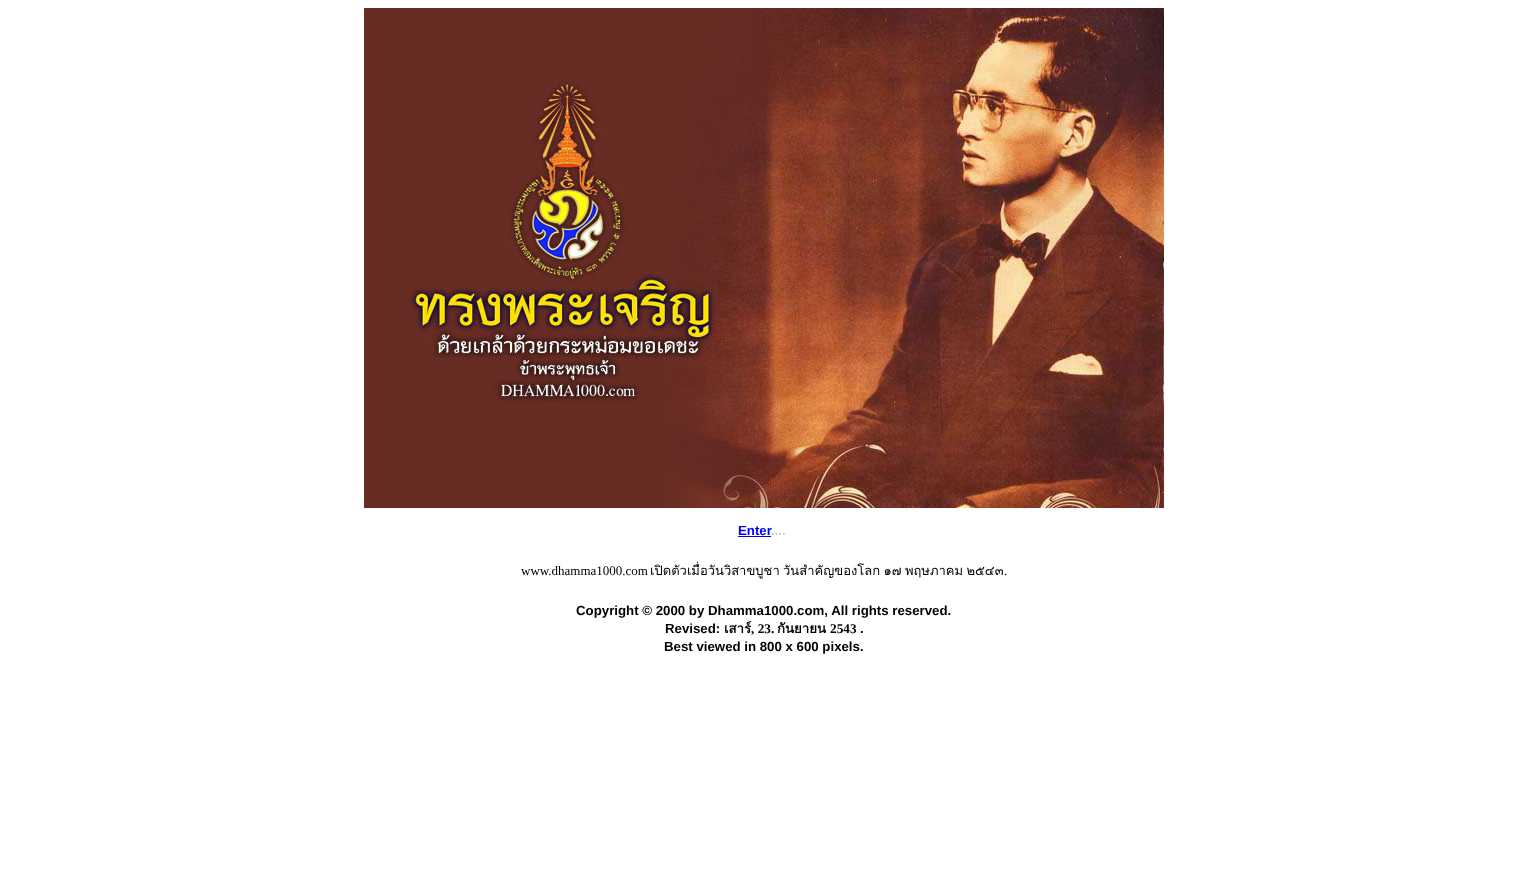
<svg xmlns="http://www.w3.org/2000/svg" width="1528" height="880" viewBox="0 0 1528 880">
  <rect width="100%" height="100%" fill="#ffffff"/>
  <image x="364" y="8" width="800" height="500" href="img1.png"/>
  <text x="738" y="535" font-family="Liberation Sans" font-size="13.25" font-weight="bold" fill="#0000ff">Enter</text>
  <text x="771" y="535" font-family="Liberation Sans" font-size="13.25" font-weight="bold" fill="#cccccc">....</text>
  <rect x="738" y="536" width="33" height="1" fill="#0000ff"/>
  <text x="521" y="575" font-family="Liberation Serif" font-size="13" fill="#000000">www.dhamma1000.com</text>
  <text x="650" y="575" word-spacing="-1" font-family="Loma" font-size="13" fill="#000000">เปิดตัวเมื่อวันวิสาขบูชา วันสำคัญของโลก ๑๗ พฤษภาคม ๒๕๔๓</text>
  <text x="1004" y="575" font-family="Liberation Serif" font-size="13" fill="#000000">.</text>
  <text x="576" y="615" font-family="Liberation Sans" font-size="13.25" font-weight="bold" fill="#000000">Copyright © 2000 by Dhamma1000.com, All rights reserved.</text>
  <text x="665" y="633" font-family="Liberation Sans" font-size="13.25" font-weight="bold" fill="#000000">Revised:</text>
  <text x="724" y="633" font-family="Loma" font-size="13.25" font-weight="bold" fill="#000000">เสาร์</text>
  <text x="751" y="633" font-family="Liberation Serif" font-size="13.25" font-weight="bold" fill="#000000">, 23.</text>
  <text x="777" y="633" font-family="Loma" font-size="13.25" font-weight="bold" fill="#000000">กันยายน</text>
  <text x="830" y="633" font-family="Liberation Serif" font-size="13.25" font-weight="bold" fill="#000000">2543</text>
  <text x="860" y="633" font-family="Liberation Sans" font-size="13.25" font-weight="bold" fill="#000000">.</text>
  <text x="664" y="651" font-family="Liberation Sans" font-size="13.25" font-weight="bold" fill="#000000">Best viewed in 800 x 600 pixels.</text>
</svg>
